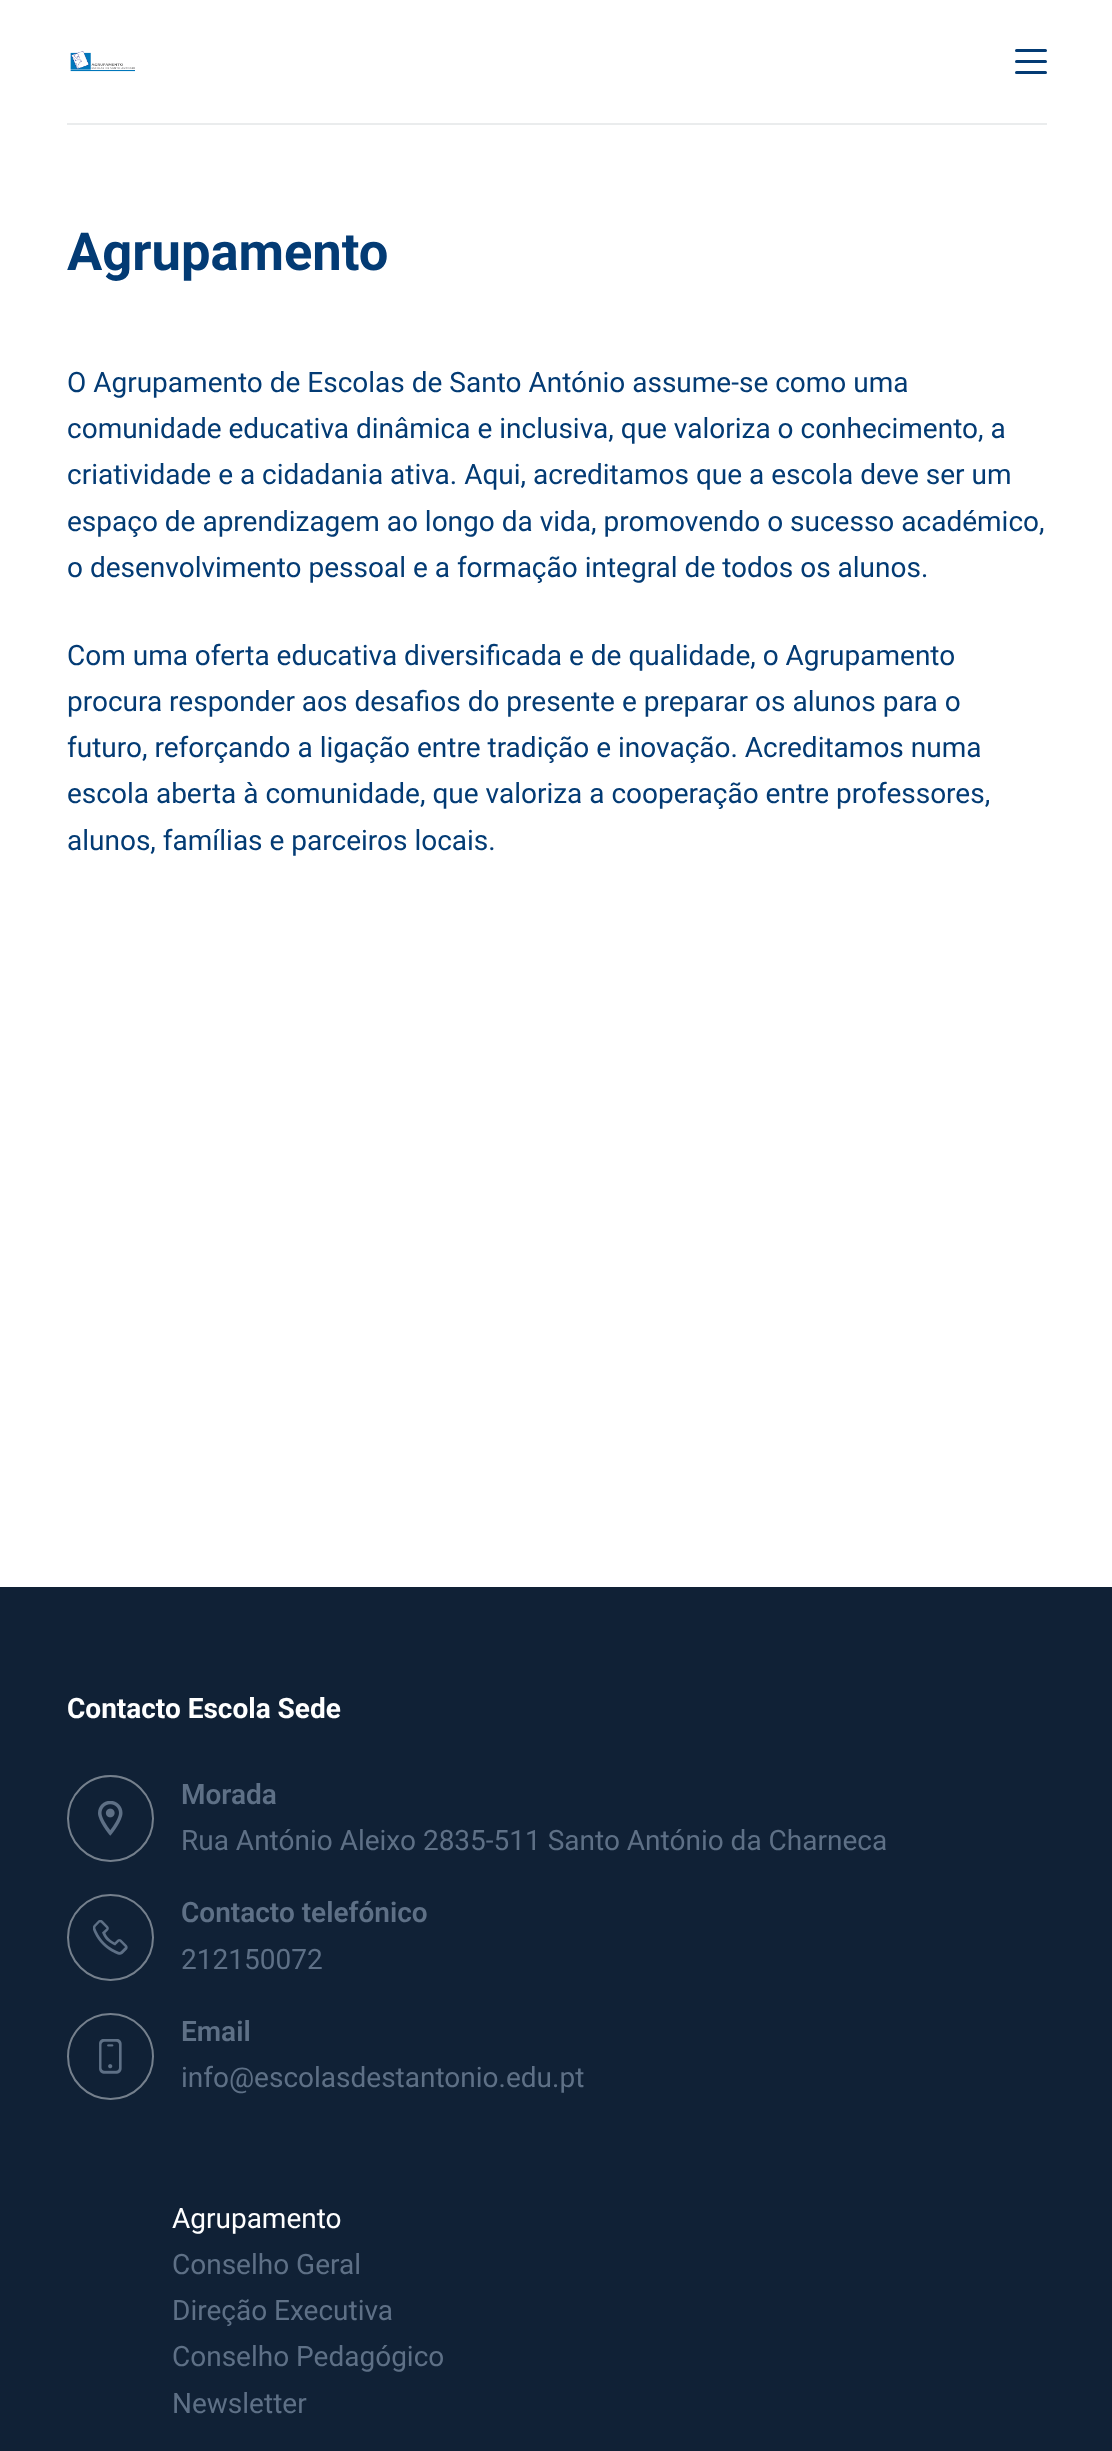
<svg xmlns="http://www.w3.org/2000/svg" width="1112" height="2451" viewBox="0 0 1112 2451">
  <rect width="100%" height="100%" fill="#ffffff"/>
  <rect x="67" y="123" width="980" height="2" fill="#eaeced"/>
  <image x="70" y="51" width="65" height="21" href="img1.png"/>
  <rect x="1015" y="49" width="32" height="3" rx="1.5" fill="#033b74"/>
  <rect x="1015" y="60" width="32" height="3" rx="1.5" fill="#033b74"/>
  <rect x="1015" y="71" width="32" height="3" rx="1.5" fill="#033b74"/>
  <text x="67" y="270" font-family="Roboto" font-size="52.5" font-weight="bold" fill="#033b74">Agrupamento</text>
  <text x="67" y="392" font-family="Roboto" font-size="28" fill="#033b74">O Agrupamento de Escolas de Santo António assume-se como uma</text>
  <text x="67" y="438" font-family="Roboto" font-size="28" fill="#033b74">comunidade educativa dinâmica e inclusiva, que valoriza o conhecimento, a</text>
  <text x="67" y="484" font-family="Roboto" font-size="28" fill="#033b74">criatividade e a cidadania ativa. Aqui, acreditamos que a escola deve ser um</text>
  <text x="67" y="531" font-family="Roboto" font-size="28" fill="#033b74">espaço de aprendizagem ao longo da vida, promovendo o sucesso académico,</text>
  <text x="67" y="577" font-family="Roboto" font-size="28" fill="#033b74">o desenvolvimento pessoal e a formação integral de todos os alunos.</text>
  <text x="67" y="665" font-family="Roboto" font-size="28" fill="#033b74">Com uma oferta educativa diversificada e de qualidade, o Agrupamento</text>
  <text x="67" y="711" font-family="Roboto" font-size="28" fill="#033b74">procura responder aos desafios do presente e preparar os alunos para o</text>
  <text x="67" y="757" font-family="Roboto" font-size="28" fill="#033b74">futuro, reforçando a ligação entre tradição e inovação. Acreditamos numa</text>
  <text x="67" y="803" font-family="Roboto" font-size="28" fill="#033b74">escola aberta à comunidade, que valoriza a cooperação entre professores,</text>
  <text x="67" y="850" font-family="Roboto" font-size="28" fill="#033b74">alunos, famílias e parceiros locais.</text>
  <rect x="0" y="1587" width="1112" height="864" fill="#102136"/>
  <text x="67" y="1718" font-family="Roboto" font-size="28" font-weight="bold" fill="#ffffff">Contacto Escola Sede</text>
  <circle cx="110.5" cy="1818.5" r="42.5" fill="none" stroke="#75808d" stroke-width="2"/>
  <image x="98" y="1801" width="25" height="35" href="img2.png"/>
  <text x="181" y="1804" font-family="Roboto" font-size="28" font-weight="600" fill="#5e7086">Morada</text>
  <text x="181" y="1850" font-family="Roboto" font-size="28" fill="#5e7086">Rua António Aleixo 2835-511 Santo António da Charneca</text>
  <circle cx="110.5" cy="1937.5" r="42.5" fill="none" stroke="#75808d" stroke-width="2"/>
  <image x="93" y="1920" width="35" height="35" href="img3.png"/>
  <text x="181" y="1922" font-family="Roboto" font-size="28" font-weight="600" fill="#5e7086">Contacto telefónico</text>
  <text x="181" y="1969" font-family="Roboto" font-size="28" fill="#5e7086">212150072</text>
  <circle cx="110.5" cy="2056.5" r="42.5" fill="none" stroke="#75808d" stroke-width="2"/>
  <image x="99" y="2039" width="23" height="35" href="img4.png"/>
  <text x="181" y="2041" font-family="Roboto" font-size="28" font-weight="600" fill="#5e7086">Email</text>
  <text x="181" y="2087" font-family="Roboto" font-size="28" fill="#5e7086">info@escolasdestantonio.edu.pt</text>
  <text x="172" y="2228" font-family="Roboto" font-size="28" fill="#ffffff">Agrupamento</text>
  <text x="172" y="2274" font-family="Roboto" font-size="28" fill="#5e7086">Conselho Geral</text>
  <text x="172" y="2320" font-family="Roboto" font-size="28" fill="#5e7086">Direção Executiva</text>
  <text x="172" y="2366" font-family="Roboto" font-size="28" fill="#5e7086">Conselho Pedagógico</text>
  <text x="172" y="2413" font-family="Roboto" font-size="28" fill="#5e7086">Newsletter</text>
</svg>
